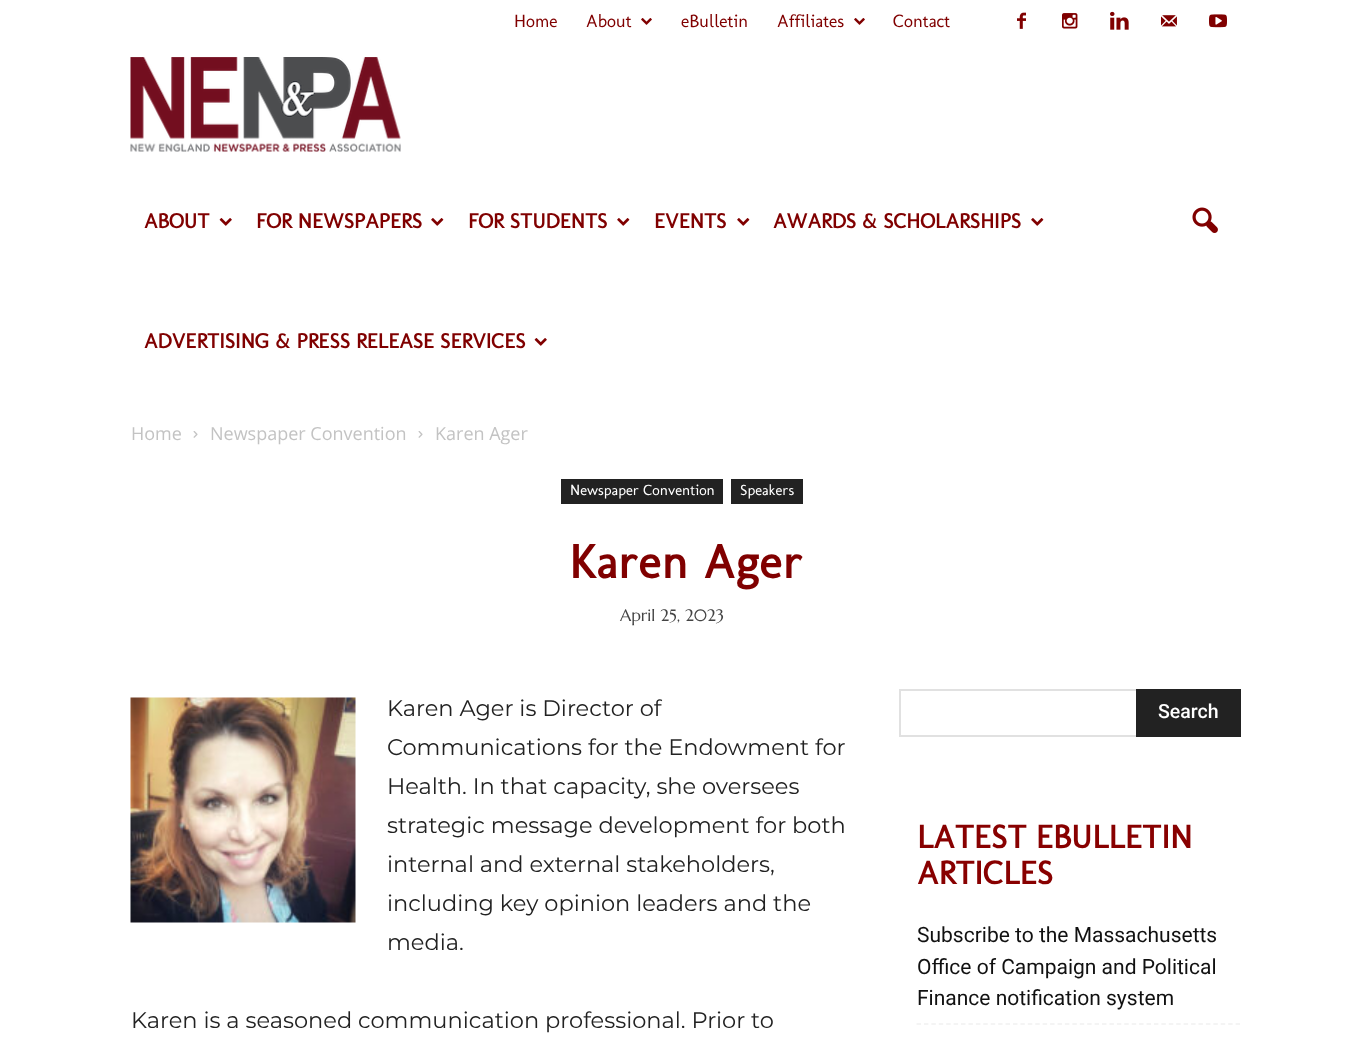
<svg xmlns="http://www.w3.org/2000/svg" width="1371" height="1043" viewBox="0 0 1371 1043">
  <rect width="100%" height="100%" fill="#ffffff"/>
  <text x="514" y="27" font-family="Molengo" font-size="18" fill="#800000">Home</text>
  <text x="586" y="27" font-family="Molengo" font-size="18" fill="#800000">About</text>
  <image x="641" y="18" width="11" height="7" href="img1.png"/>
  <text x="681" y="27" font-family="Molengo" font-size="18" fill="#800000">eBulletin</text>
  <text x="777" y="27" font-family="Molengo" font-size="18" fill="#800000">Affiliates</text>
  <image x="854" y="18" width="11" height="7" href="img1.png"/>
  <text x="893" y="27" font-family="Molengo" font-size="18" fill="#800000">Contact</text>
  <image x="1017" y="12" width="9" height="17" href="img2.png"/>
  <image x="1062" y="13" width="16" height="16" href="img3.png"/>
  <image x="1110" y="11" width="19" height="19" href="img4.png"/>
  <image x="1161" y="15" width="16" height="12" href="img5.png"/>
  <image x="1209" y="14" width="18" height="14" href="img6.png"/>
  <image x="130" y="57" width="271" height="95" href="img7.png"/>
  <text x="144" y="228" font-family="Molengo" font-size="21" font-weight="bold" fill="#800000">ABOUT</text>
  <image x="219" y="218" width="13" height="8" href="img8.png"/>
  <text x="256" y="228" font-family="Molengo" font-size="21" font-weight="bold" fill="#800000">FOR NEWSPAPERS</text>
  <image x="431" y="218" width="13" height="8" href="img9.png"/>
  <text x="468" y="228" font-family="Molengo" font-size="21" font-weight="bold" fill="#800000">FOR STUDENTS</text>
  <image x="617" y="218" width="13" height="8" href="img9.png"/>
  <text x="654" y="228" font-family="Molengo" font-size="21" font-weight="bold" fill="#800000">EVENTS</text>
  <image x="737" y="218" width="13" height="8" href="img9.png"/>
  <text x="773" y="228" font-family="Molengo" font-size="21" font-weight="bold" fill="#800000">AWARDS &amp; SCHOLARSHIPS</text>
  <image x="1031" y="218" width="13" height="8" href="img9.png"/>
  <text x="144" y="348" font-family="Molengo" font-size="21" font-weight="bold" fill="#800000">ADVERTISING &amp; PRESS RELEASE SERVICES</text>
  <image x="534" y="338" width="13" height="8" href="img8.png"/>
  <image x="1192" y="207" width="26" height="26" href="img10.png"/>
  <text x="131" y="440" font-family="Open Sans" font-size="18" fill="#c3c3c3">Home</text>
  <image x="193" y="431" width="5" height="7" href="img11.png"/>
  <text x="210" y="440" font-family="Open Sans" font-size="18" fill="#c3c3c3">Newspaper Convention</text>
  <image x="418" y="431" width="5" height="7" href="img11.png"/>
  <text x="435" y="440" font-family="Open Sans" font-size="18" fill="#c3c3c3">Karen Ager</text>
  <rect x="561" y="479" width="162" height="25" fill="#222222"/>
  <text x="570" y="495" font-family="Molengo" font-size="15" fill="#ffffff">Newspaper Convention</text>
  <rect x="731" y="479" width="72" height="25" fill="#222222"/>
  <text x="740" y="495" font-family="Molengo" font-size="15" fill="#ffffff">Speakers</text>
  <text x="569" y="578" font-family="Molengo" font-size="48" font-weight="bold" letter-spacing="1" fill="#800000">Karen Ager</text>
  <text x="620" y="621" font-family="Marcellus" font-size="16.5" fill="#444444">April 25, 2023</text>
  <image x="130" y="697" width="226" height="226" href="img12.png"/>
  <text x="387" y="716" font-family="Montserrat" font-size="22.5" fill="#222222">Karen Ager is Director of</text>
  <text x="387" y="755" font-family="Montserrat" font-size="22.5" fill="#222222">Communications for the Endowment for</text>
  <text x="387" y="794" font-family="Montserrat" font-size="22.5" fill="#222222">Health. In that capacity, she oversees</text>
  <text x="387" y="833" font-family="Montserrat" font-size="22.5" fill="#222222">strategic message development for both</text>
  <text x="387" y="872" font-family="Montserrat" font-size="22.5" fill="#222222">internal and external stakeholders,</text>
  <text x="387" y="911" font-family="Montserrat" font-size="22.5" fill="#222222">including key opinion leaders and the</text>
  <text x="387" y="950" font-family="Montserrat" font-size="22.5" fill="#222222">media.</text>
  <text x="131" y="1028" font-family="Montserrat" font-size="22.5" fill="#222222">Karen is a seasoned communication professional. Prior to</text>
  <rect x="899" y="689" width="237" height="2" fill="#e1e1e1"/>
  <rect x="899" y="735" width="237" height="2" fill="#e1e1e1"/>
  <rect x="899" y="689" width="2" height="48" fill="#e1e1e1"/>
  <rect x="1136" y="689" width="105" height="48" fill="#222222"/>
  <text x="1158" y="718" font-family="Roboto" font-size="19.5" font-weight="500" fill="#ffffff">Search</text>
  <text x="917" y="848" font-family="Molengo" font-size="33" font-weight="bold" fill="#880000">LATEST EBULLETIN</text>
  <text x="917" y="884" font-family="Molengo" font-size="33" font-weight="bold" fill="#880000">ARTICLES</text>
  <path d="M916.5 1024H1240.5" fill="none" stroke="#f1f1f1" stroke-width="1.5" stroke-dasharray="4.5 2.92"/>
  <text x="917" y="942" font-family="Roboto" font-size="21" fill="#111111">Subscribe to the Massachusetts</text>
  <text x="917" y="974" font-family="Roboto" font-size="21" fill="#111111">Office of Campaign and Political</text>
  <text x="917" y="1005" font-family="Roboto" font-size="21" fill="#111111">Finance notification system</text>
</svg>
